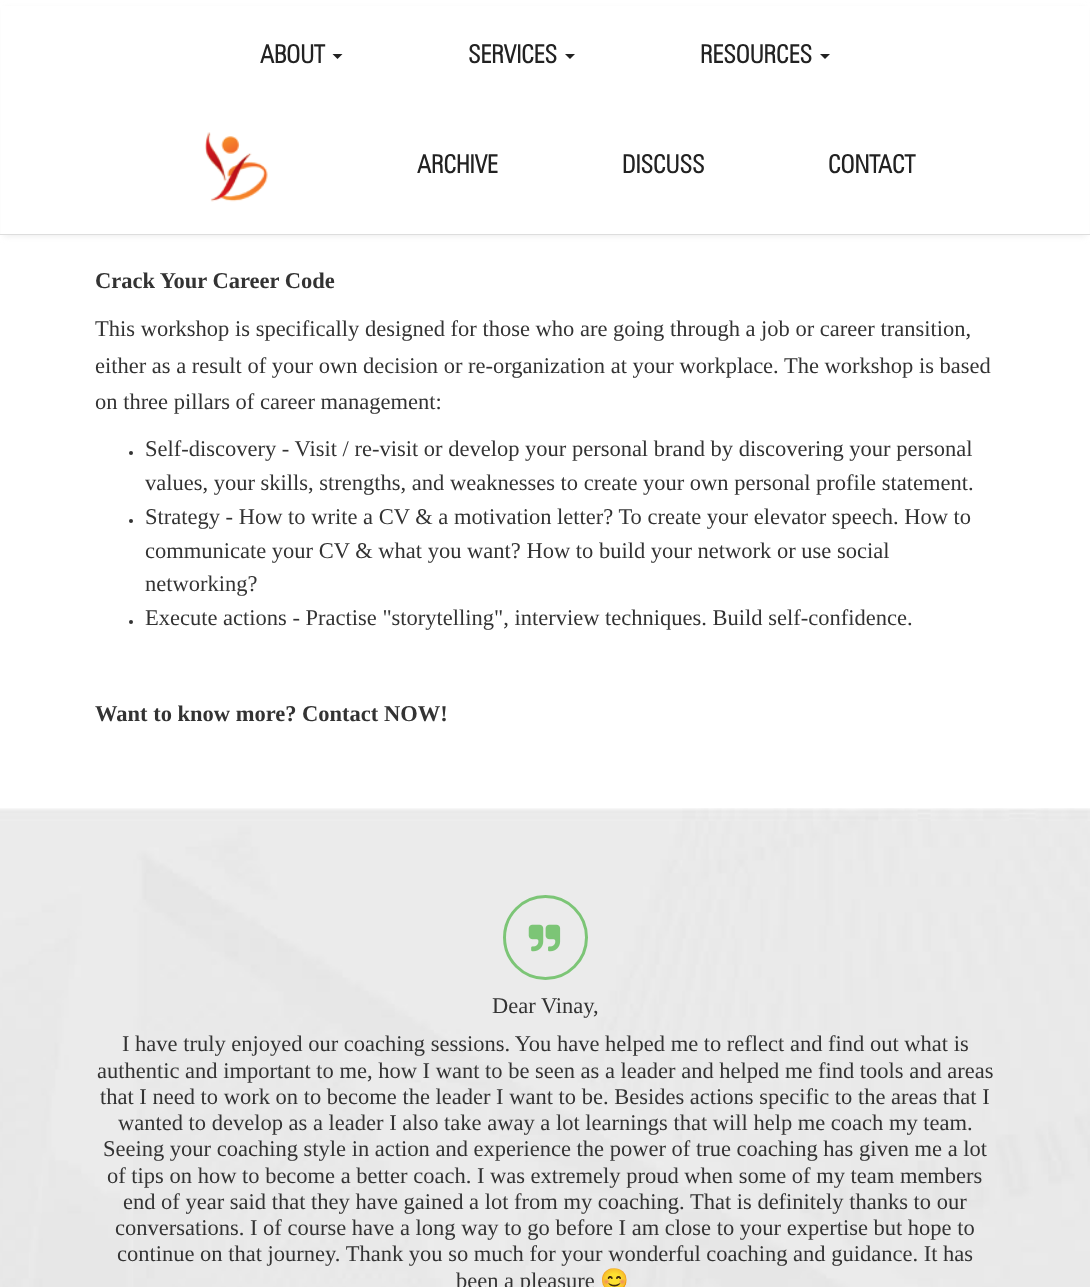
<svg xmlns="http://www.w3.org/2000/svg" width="1090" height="1287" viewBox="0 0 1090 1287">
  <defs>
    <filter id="blur1" x="-50%" y="-200%" width="200%" height="500%"><feGaussianBlur stdDeviation="3"/></filter>
  </defs>
  <rect width="100%" height="100%" fill="#ffffff"/>
  <rect x="4" y="9" width="1082" height="227" fill="#ececec" filter="url(#blur1)"/>
  <rect x="1" y="6" width="1088" height="228" fill="#ffffff"/>
  <rect x="0" y="234" width="1090" height="1" fill="#dddddd"/>
  <text x="260" y="63" font-family="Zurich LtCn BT" font-size="25" font-weight="bold" fill="#222222">ABOUT</text>
  <path d="M332.5 54H342.5L337.5 59Z" fill="#222222"/>
  <text x="468" y="63" font-family="Zurich LtCn BT" font-size="25" font-weight="bold" fill="#222222">SERVICES</text>
  <path d="M565 54H575L570 59Z" fill="#222222"/>
  <text x="700" y="63" font-family="Zurich LtCn BT" font-size="25" font-weight="bold" fill="#222222">RESOURCES</text>
  <path d="M820 54H830L825 59Z" fill="#222222"/>
  <image x="205" y="132" width="63" height="70" href="img1.png"/>
  <text x="417" y="173" font-family="Zurich LtCn BT" font-size="25" font-weight="bold" fill="#222222">ARCHIVE</text>
  <text x="622" y="173" font-family="Zurich LtCn BT" font-size="25" font-weight="bold" fill="#222222">DISCUSS</text>
  <text x="828" y="173" font-family="Zurich LtCn BT" font-size="25" font-weight="bold" fill="#222222">CONTACT</text>
  <text x="95" y="288" font-family="Liberation Serif" font-size="22.5" font-weight="bold" fill="#333333">Crack Your Career Code</text>
  <text x="95" y="336" font-family="Liberation Serif" font-size="22.5" fill="#333333">This workshop is specifically designed for those who are going through a job or career transition,</text>
  <text x="95" y="373" font-family="Liberation Serif" font-size="22.5" fill="#333333">either as a result of your own decision or re-organization at your workplace. The workshop is based</text>
  <text x="95" y="409" font-family="Liberation Serif" font-size="22.5" fill="#333333">on three pillars of career management:</text>
  <circle cx="131" cy="453" r="2" fill="#333333"/>
  <text x="145" y="456" font-family="Liberation Serif" font-size="22.5" fill="#333333">Self-discovery - Visit / re-visit or develop your personal brand by discovering your personal</text>
  <text x="145" y="490" font-family="Liberation Serif" font-size="22.5" fill="#333333">values, your skills, strengths, and weaknesses to create your own personal profile statement.</text>
  <circle cx="131" cy="521" r="2" fill="#333333"/>
  <text x="145" y="524" font-family="Liberation Serif" font-size="22.5" fill="#333333">Strategy - How to write a CV &amp; a motivation letter? To create your elevator speech. How to</text>
  <text x="145" y="558" font-family="Liberation Serif" font-size="22.5" fill="#333333">communicate your CV &amp; what you want? How to build your network or use social</text>
  <text x="145" y="591" font-family="Liberation Serif" font-size="22.5" fill="#333333">networking?</text>
  <circle cx="131" cy="622" r="2" fill="#333333"/>
  <text x="145" y="625" font-family="Liberation Serif" font-size="22.5" fill="#333333">Execute actions - Practise "storytelling", interview techniques. Build self-confidence.</text>
  <text x="95" y="721" font-family="Liberation Serif" font-size="22.5" font-weight="bold" fill="#333333">Want to know more? Contact NOW!</text>
  <image x="0" y="808" width="1090" height="479" href="img2.png"/>
  <circle cx="545.5" cy="937.5" r="41" fill="none" stroke="#7cc576" stroke-width="3"/>
  <image x="528" y="924" width="33" height="28" href="img3.png"/>
  <text x="492" y="1013" font-family="Liberation Serif" font-size="22.5" fill="#333333">Dear Vinay,</text>
  <text x="122" y="1051" font-family="Liberation Serif" font-size="22.5" fill="#333333">I have truly enjoyed our coaching sessions. You have helped me to reflect and find out what is</text>
  <text x="97" y="1078" font-family="Liberation Serif" font-size="22.5" fill="#333333">authentic and important to me, how I want to be seen as a leader and helped me find tools and areas</text>
  <text x="100" y="1104" font-family="Liberation Serif" font-size="22.5" fill="#333333">that I need to work on to become the leader I want to be. Besides actions specific to the areas that I</text>
  <text x="118" y="1130" font-family="Liberation Serif" font-size="22.5" fill="#333333">wanted to develop as a leader I also take away a lot learnings that will help me coach my team.</text>
  <text x="103" y="1156" font-family="Liberation Serif" font-size="22.5" fill="#333333">Seeing your coaching style in action and experience the power of true coaching has given me a lot</text>
  <text x="107" y="1183" font-family="Liberation Serif" font-size="22.5" fill="#333333">of tips on how to become a better coach. I was extremely proud when some of my team members</text>
  <text x="123" y="1209" font-family="Liberation Serif" font-size="22.5" fill="#333333">end of year said that they have gained a lot from my coaching. That is definitely thanks to our</text>
  <text x="115" y="1235" font-family="Liberation Serif" font-size="22.5" fill="#333333">conversations. I of course have a long way to go before I am close to your expertise but hope to</text>
  <text x="117" y="1261" font-family="Liberation Serif" font-size="22.5" fill="#333333">continue on that journey. Thank you so much for your wonderful coaching and guidance. It has</text>
  <text x="456" y="1288" font-family="Liberation Serif" font-size="22.5" fill="#333333">been a pleasure</text>
  <text x="600" y="1288" font-family="Noto Color Emoji" font-size="23" fill="#333333">😊</text>
</svg>
